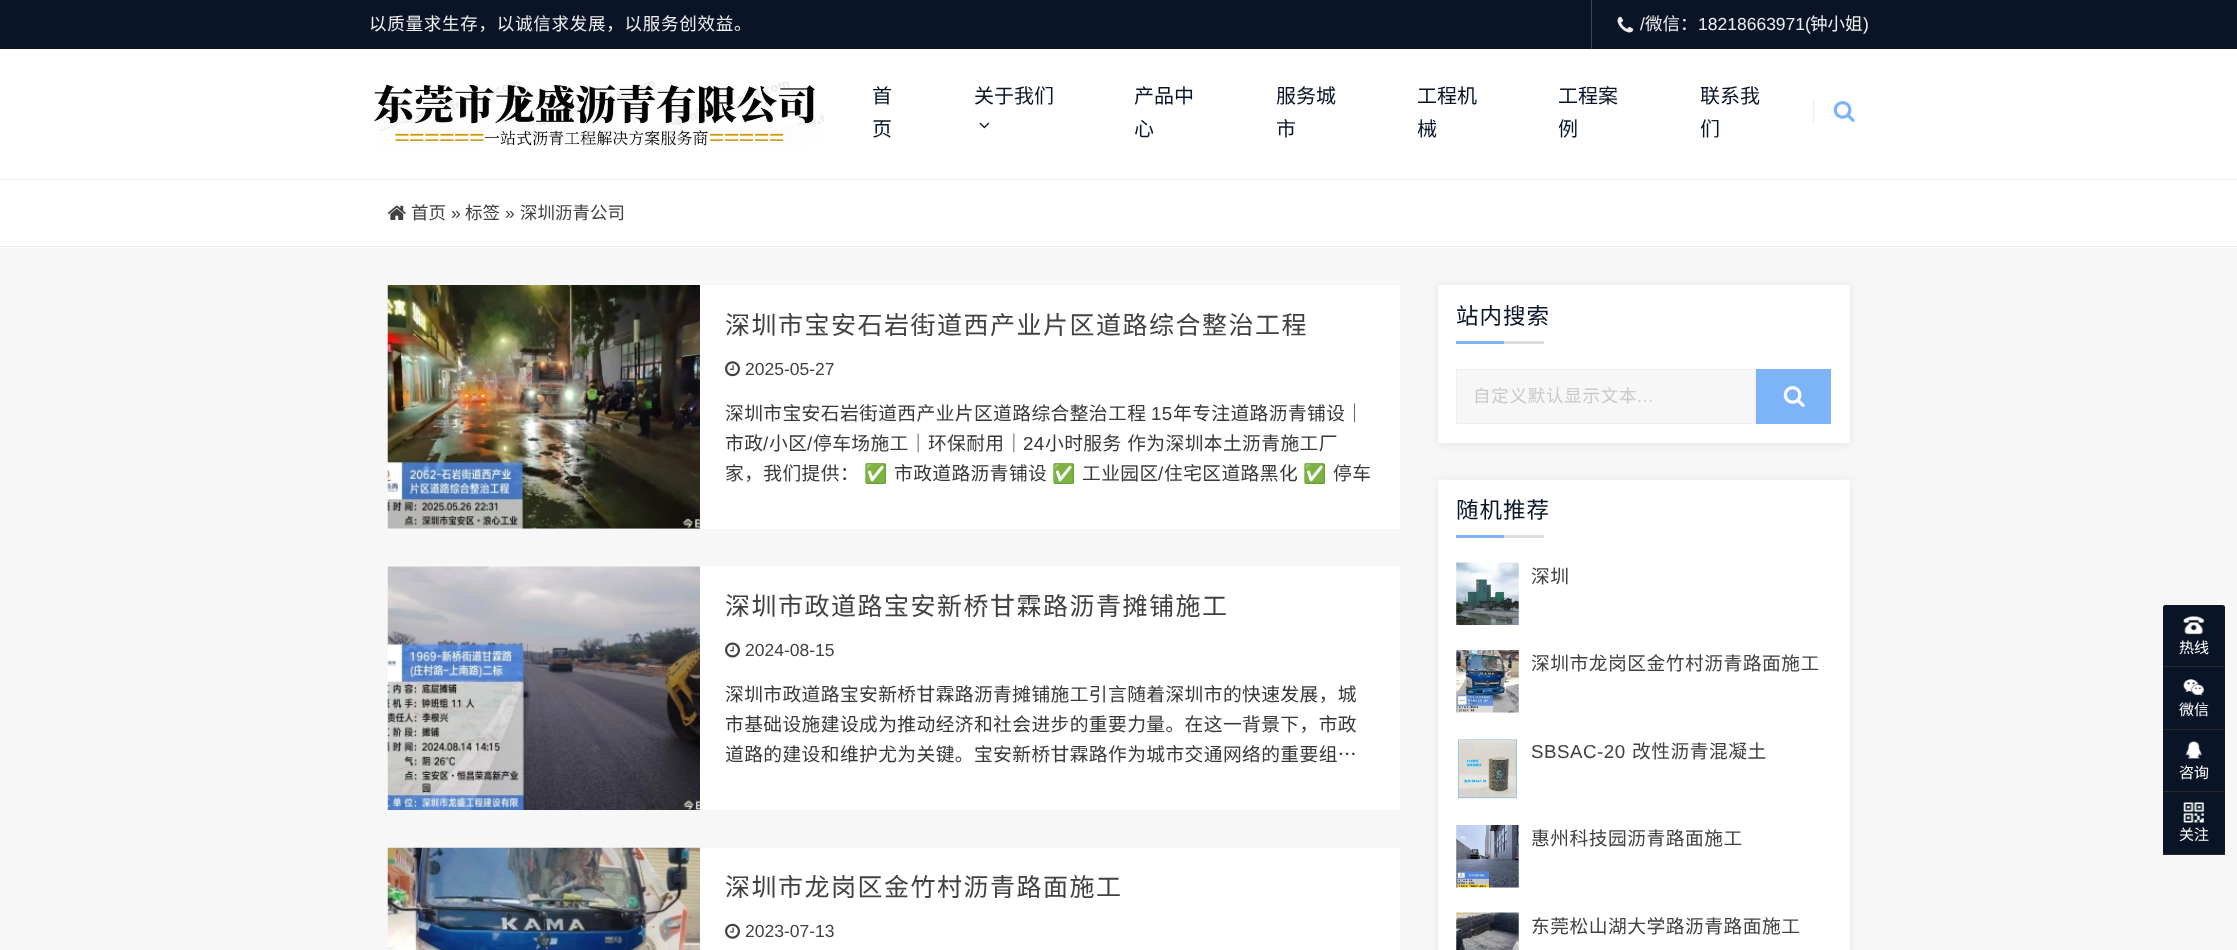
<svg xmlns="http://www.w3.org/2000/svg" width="2237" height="950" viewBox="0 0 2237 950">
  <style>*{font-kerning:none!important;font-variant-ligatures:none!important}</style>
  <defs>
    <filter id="blur1" x="-50%" y="-200%" width="200%" height="500%"><feGaussianBlur stdDeviation="5"/></filter>
  </defs>
  <rect width="100%" height="100%" fill="#ffffff"/>
  <rect x="0" y="0" width="2237" height="49" fill="#091426"/>
  <text x="369" y="30" font-family="Noto Sans CJK SC" font-size="17.5" letter-spacing="0.75" fill="#eeeeee">以质量求生存，以诚信求发展，以服务创效益。</text>
  <rect x="1591" y="0" width="1" height="49" fill="#3a4351"/>
  <image x="1617" y="16" width="17" height="17" href="img1.png"/>
  <text x="1640" y="30" font-family="Liberation Sans" font-size="17.5" fill="#eeeeee">/</text>
  <text x="1645" y="30" font-family="Noto Sans CJK SC" font-size="17.5" fill="#eeeeee">微信：</text>
  <text x="1698" y="30" font-family="Liberation Sans" font-size="17.5" fill="#eeeeee">18218663971(</text>
  <text x="1810" y="30" font-family="Noto Sans CJK SC" font-size="17.5" fill="#eeeeee">钟小姐</text>
  <text x="1863" y="30" font-family="Liberation Sans" font-size="17.5" fill="#eeeeee">)</text>
  <image x="374" y="81" width="450" height="65" href="img2.png"/>
  <text x="872" y="103" font-family="Noto Sans CJK SC" font-size="20" fill="#091426">首</text>
  <text x="872" y="136" font-family="Noto Sans CJK SC" font-size="20" fill="#091426">页</text>
  <text x="974" y="103" font-family="Noto Sans CJK SC" font-size="20" fill="#091426">关于我们</text>
  <image x="979" y="122" width="11" height="7" href="img3.png"/>
  <text x="1134" y="103" font-family="Noto Sans CJK SC" font-size="20" fill="#091426">产品中</text>
  <text x="1134" y="136" font-family="Noto Sans CJK SC" font-size="20" fill="#091426">心</text>
  <text x="1276" y="103" font-family="Noto Sans CJK SC" font-size="20" fill="#091426">服务城</text>
  <text x="1276" y="136" font-family="Noto Sans CJK SC" font-size="20" fill="#091426">市</text>
  <text x="1417" y="103" font-family="Noto Sans CJK SC" font-size="20" fill="#091426">工程机</text>
  <text x="1417" y="136" font-family="Noto Sans CJK SC" font-size="20" fill="#091426">械</text>
  <text x="1558" y="103" font-family="Noto Sans CJK SC" font-size="20" fill="#091426">工程案</text>
  <text x="1558" y="136" font-family="Noto Sans CJK SC" font-size="20" fill="#091426">例</text>
  <text x="1700" y="103" font-family="Noto Sans CJK SC" font-size="20" fill="#091426">联系我</text>
  <text x="1700" y="136" font-family="Noto Sans CJK SC" font-size="20" fill="#091426">们</text>
  <rect x="1813" y="99" width="1" height="25" fill="#eeeeee"/>
  <image x="1833" y="101" width="22" height="21" href="img4.png"/>
  <rect x="0" y="179" width="2237" height="1" fill="#eeeeee"/>
  <rect x="0" y="246" width="2237" height="1" fill="#eeeeee"/>
  <image x="387" y="205" width="19" height="15" href="img5.png"/>
  <text x="411" y="219" font-family="Noto Sans CJK SC" font-size="17.5" fill="#414141">首页</text>
  <text x="451" y="219" font-family="Liberation Sans" font-size="17.5" fill="#414141">»</text>
  <text x="465" y="219" font-family="Noto Sans CJK SC" font-size="17.5" fill="#414141">标签</text>
  <text x="505" y="219" font-family="Liberation Sans" font-size="17.5" fill="#414141">»</text>
  <text x="520" y="219" font-family="Noto Sans CJK SC" font-size="17.5" fill="#414141">深圳沥青公司</text>
  <rect x="0" y="248" width="2237" height="702" fill="#f7f7f7"/>
  <rect x="388" y="285" width="1012" height="244" fill="#ffffff"/>
  <image x="387" y="285" width="313" height="244" href="img6.png"/>
  <text x="725" y="334" font-family="Noto Sans CJK SC" font-size="25" letter-spacing="1.5" fill="#414141">深圳市宝安石岩街道西产业片区道路综合整治工程</text>
  <image x="725" y="361" width="15" height="16" href="img7.png"/>
  <text x="745" y="375" font-family="Liberation Sans" font-size="17.5" fill="#414141">2025-05-27</text>
  <text x="725" y="420" font-family="Noto Sans CJK SC" font-size="18.75" letter-spacing="0.4" fill="#383838">深圳市宝安石岩街道西产业片区道路综合整治工程</text>
  <text x="1151" y="420" font-family="Liberation Sans" font-size="18.75" letter-spacing="0.4" fill="#383838">15</text>
  <text x="1173" y="420" font-family="Noto Sans CJK SC" font-size="18.75" letter-spacing="0.4" fill="#383838">年专注道路沥青铺设｜</text>
  <text x="725" y="450" font-family="Noto Sans CJK SC" font-size="18.75" letter-spacing="0.4" fill="#383838">市政</text>
  <text x="763" y="450" font-family="Liberation Sans" font-size="18.75" letter-spacing="0.4" fill="#383838">/</text>
  <text x="769" y="450" font-family="Noto Sans CJK SC" font-size="18.75" letter-spacing="0.4" fill="#383838">小区</text>
  <text x="807" y="450" font-family="Liberation Sans" font-size="18.75" letter-spacing="0.4" fill="#383838">/</text>
  <text x="813" y="450" font-family="Noto Sans CJK SC" font-size="18.75" letter-spacing="0.4" fill="#383838">停车场施工｜环保耐用｜</text>
  <text x="1023" y="450" font-family="Liberation Sans" font-size="18.75" letter-spacing="0.4" fill="#383838">24</text>
  <text x="1045" y="450" word-spacing="1" font-family="Noto Sans CJK SC" font-size="18.75" letter-spacing="0.4" fill="#383838">小时服务 作为深圳本土沥青施工厂</text>
  <text x="725" y="480" font-family="Noto Sans CJK SC" font-size="18.75" letter-spacing="0.4" fill="#383838">家，我们提供：</text>
  <text x="864" y="480" font-family="Noto Color Emoji" font-size="18.75" letter-spacing="0.4" fill="#383838">✅</text>
  <text x="894" y="480" font-family="Noto Sans CJK SC" font-size="18.75" letter-spacing="0.4" fill="#383838">市政道路沥青铺设</text>
  <text x="1052" y="480" font-family="Noto Color Emoji" font-size="18.75" letter-spacing="0.4" fill="#383838">✅</text>
  <text x="1082" y="480" font-family="Noto Sans CJK SC" font-size="18.75" letter-spacing="0.4" fill="#383838">工业园区</text>
  <text x="1158" y="480" font-family="Liberation Sans" font-size="18.75" letter-spacing="0.4" fill="#383838">/</text>
  <text x="1164" y="480" font-family="Noto Sans CJK SC" font-size="18.75" letter-spacing="0.4" fill="#383838">住宅区道路黑化</text>
  <text x="1303" y="480" font-family="Noto Color Emoji" font-size="18.75" letter-spacing="0.4" fill="#383838">✅</text>
  <text x="1333" y="480" font-family="Noto Sans CJK SC" font-size="18.75" letter-spacing="0.4" fill="#383838">停车</text>
  <rect x="388" y="566" width="1012" height="244" fill="#ffffff"/>
  <image x="387" y="566" width="313" height="244" href="img8.png"/>
  <text x="725" y="615" font-family="Noto Sans CJK SC" font-size="25" letter-spacing="1.5" fill="#414141">深圳市政道路宝安新桥甘霖路沥青摊铺施工</text>
  <image x="725" y="642" width="15" height="16" href="img9.png"/>
  <text x="745" y="656" font-family="Liberation Sans" font-size="17.5" fill="#414141">2024-08-15</text>
  <text x="725" y="701" font-family="Noto Sans CJK SC" font-size="18.75" letter-spacing="0.4" fill="#383838">深圳市政道路宝安新桥甘霖路沥青摊铺施工引言随着深圳市的快速发展，城</text>
  <text x="725" y="731" font-family="Noto Sans CJK SC" font-size="18.75" letter-spacing="0.4" fill="#383838">市基础设施建设成为推动经济和社会进步的重要力量。在这一背景下，市政</text>
  <text x="725" y="761" font-family="Noto Sans CJK SC" font-size="18.75" letter-spacing="0.4" fill="#383838">道路的建设和维护尤为关键。宝安新桥甘霖路作为城市交通网络的重要组…</text>
  <rect x="700" y="848" width="700" height="102" fill="#ffffff"/>
  <image x="387" y="847" width="313" height="103" href="img10.png"/>
  <text x="725" y="896" font-family="Noto Sans CJK SC" font-size="25" letter-spacing="1.5" fill="#414141">深圳市龙岗区金竹村沥青路面施工</text>
  <image x="725" y="923" width="15" height="16" href="img11.png"/>
  <text x="745" y="937" font-family="Liberation Sans" font-size="17.5" fill="#414141">2023-07-13</text>
  <rect x="1438" y="286" width="412" height="158" fill="#000000" fill-opacity="0.08" filter="url(#blur1)"/>
  <rect x="1438" y="285" width="412" height="158" fill="#ffffff"/>
  <text x="1456" y="324" font-family="Noto Sans CJK SC" font-size="22.5" letter-spacing="1" fill="#091426">站内搜索</text>
  <rect x="1456" y="341" width="48" height="3" fill="#7db3f9"/>
  <rect x="1504" y="341" width="40" height="3" fill="#dddddd"/>
  <rect x="1456.5" y="369.5" width="299" height="54" fill="#f7f7f7" stroke="#eeeeee"/>
  <text x="1473" y="402" font-family="Noto Sans CJK SC" font-size="17.5" letter-spacing="0.75" fill="#c9c9c9">自定义默认显示文本</text>
  <text x="1637" y="402" font-family="Liberation Sans" font-size="17.5" letter-spacing="0.75" fill="#c9c9c9">...</text>
  <rect x="1756" y="369" width="75" height="55" fill="#7db3f9"/>
  <image x="1783" y="386" width="22" height="21" href="img12.png"/>
  <rect x="1438" y="481" width="412" height="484" fill="#000000" fill-opacity="0.08" filter="url(#blur1)"/>
  <rect x="1438" y="480" width="412" height="470" fill="#ffffff"/>
  <text x="1456" y="518" font-family="Noto Sans CJK SC" font-size="22.5" letter-spacing="1" fill="#091426">随机推荐</text>
  <rect x="1456" y="535" width="48" height="3" fill="#7db3f9"/>
  <rect x="1504" y="535" width="40" height="3" fill="#dddddd"/>
  <image x="1456" y="562" width="63" height="63" href="img13.png"/>
  <text x="1531" y="583" font-family="Noto Sans CJK SC" font-size="18.75" letter-spacing="0.5" fill="#414141">深圳</text>
  <image x="1456" y="650" width="63" height="63" href="img14.png"/>
  <text x="1531" y="670" font-family="Noto Sans CJK SC" font-size="18.75" letter-spacing="0.5" fill="#414141">深圳市龙岗区金竹村沥青路面施工</text>
  <image x="1457" y="738" width="61" height="61" href="img15.png"/>
  <text x="1531" y="758" font-family="Liberation Sans" font-size="18.75" letter-spacing="0.5" fill="#414141">SBSAC-20</text>
  <text x="1632" y="758" font-family="Noto Sans CJK SC" font-size="18.75" letter-spacing="0.5" fill="#414141">改性沥青混凝土</text>
  <image x="1456" y="825" width="63" height="63" href="img16.png"/>
  <text x="1531" y="845" font-family="Noto Sans CJK SC" font-size="18.75" letter-spacing="0.5" fill="#414141">惠州科技园沥青路面施工</text>
  <image x="1456" y="912" width="63" height="38" href="img17.png"/>
  <text x="1531" y="933" font-family="Noto Sans CJK SC" font-size="18.75" letter-spacing="0.5" fill="#414141">东莞松山湖大学路沥青路面施工</text>
  <rect x="2163" y="605" width="62" height="250" rx="2.5" fill="#091426"/>
  <rect x="2163" y="666" width="62" height="1" fill="#292929"/>
  <image x="2183" y="615" width="21" height="20" href="img18.png"/>
  <text x="2179" y="653" font-family="Noto Sans CJK SC" font-size="15" fill="#ffffff">热线</text>
  <rect x="2163" y="729" width="62" height="1" fill="#292929"/>
  <image x="2183" y="679" width="21" height="17" href="img19.png"/>
  <text x="2179" y="715" font-family="Noto Sans CJK SC" font-size="15" fill="#ffffff">微信</text>
  <rect x="2163" y="791" width="62" height="1" fill="#292929"/>
  <image x="2185" y="741" width="17" height="18" href="img20.png"/>
  <text x="2179" y="778" font-family="Noto Sans CJK SC" font-size="15" fill="#ffffff">咨询</text>
  <rect x="2163" y="854" width="62" height="1" fill="#292929"/>
  <image x="2183" y="802" width="21" height="21" href="img21.png"/>
  <text x="2179" y="840" font-family="Noto Sans CJK SC" font-size="15" fill="#ffffff">关注</text>
</svg>
